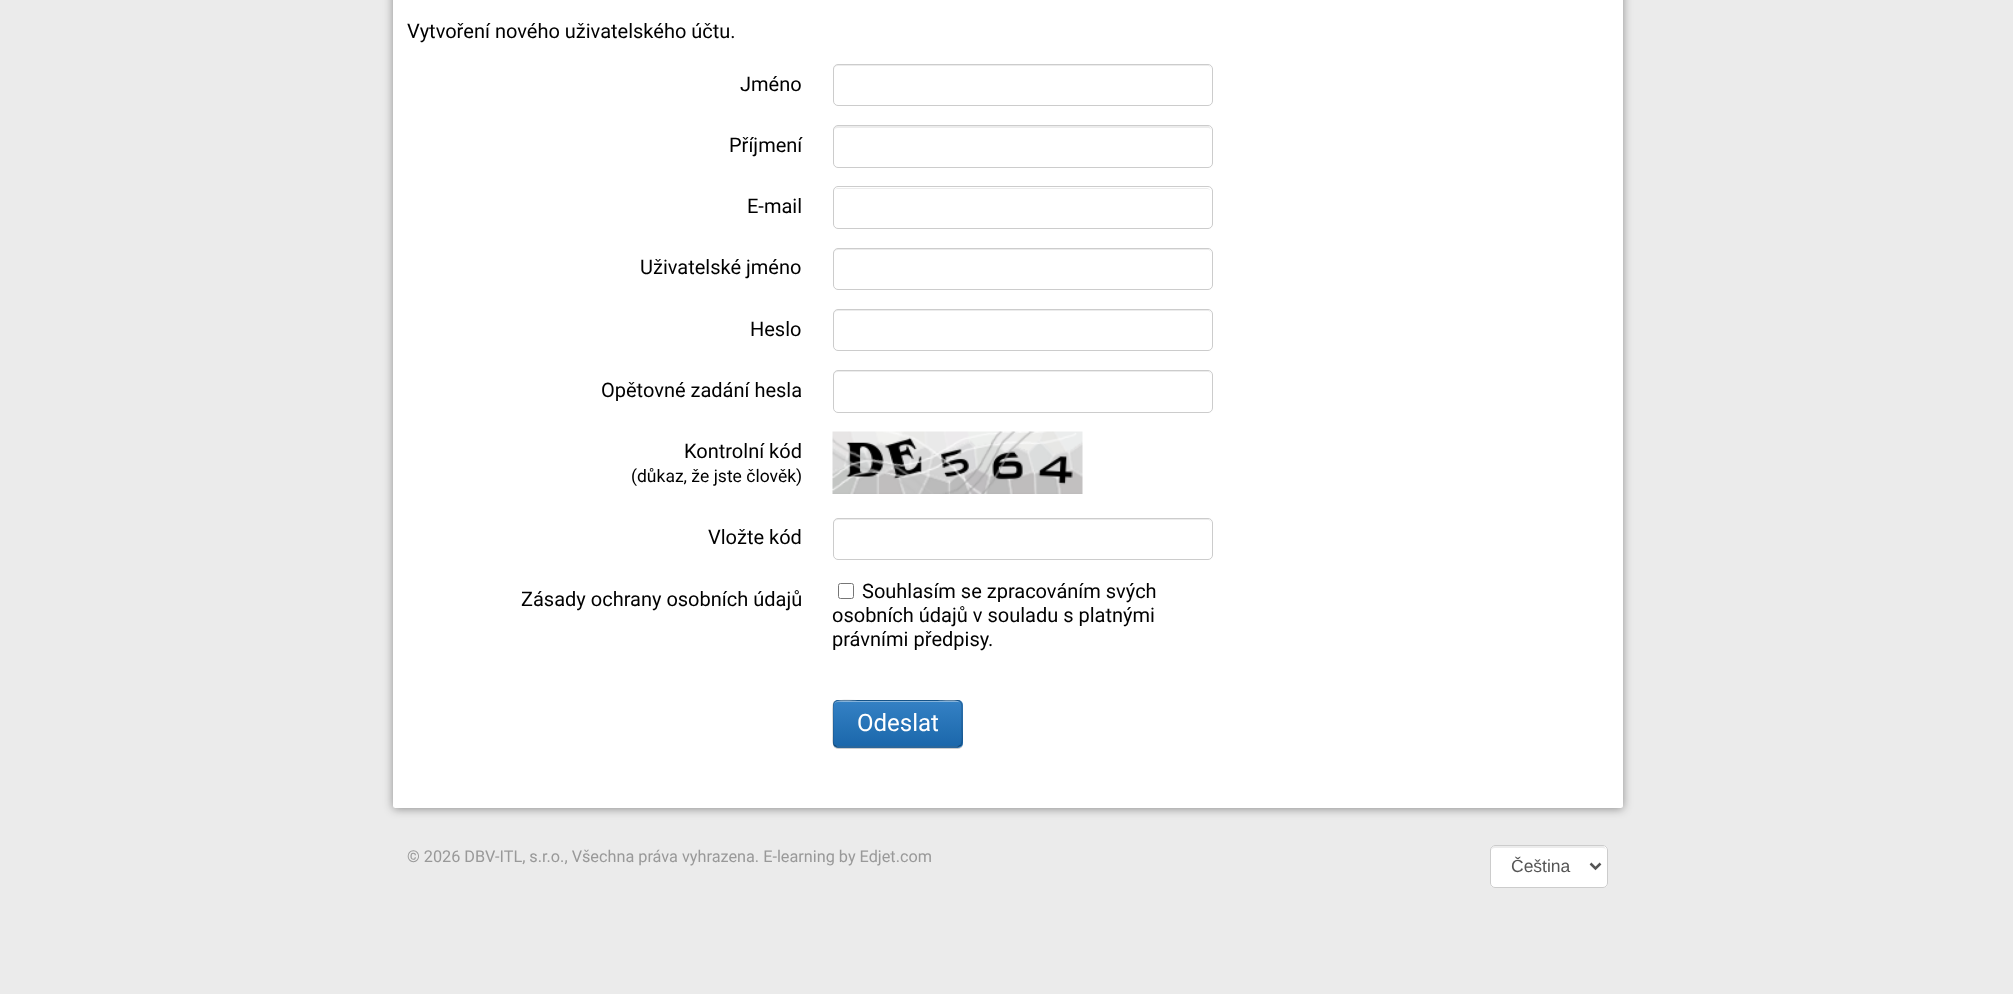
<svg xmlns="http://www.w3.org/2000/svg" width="2013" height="994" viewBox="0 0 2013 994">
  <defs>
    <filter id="blur1" x="-50%" y="-200%" width="200%" height="500%"><feGaussianBlur stdDeviation="5"/></filter>
    <filter id="blur2" x="-50%" y="-200%" width="200%" height="500%"><feGaussianBlur stdDeviation="0.5"/></filter>
    <clipPath id="clip1"><rect x="833" y="700" width="130" height="48" rx="5"/></clipPath>
    <linearGradient id="g1" gradientUnits="userSpaceOnUse" x1="898" y1="701" x2="898" y2="656"><stop offset="0" stop-color="#000000" stop-opacity="0.1"/><stop offset="1" stop-color="#ffffff" stop-opacity="0.1"/></linearGradient>
    <linearGradient id="g2" gradientUnits="userSpaceOnUse" x1="898" y1="746" x2="898" y2="701"><stop offset="0" stop-color="#000000" stop-opacity="0.1"/><stop offset="1" stop-color="#ffffff" stop-opacity="0.1"/></linearGradient>
    <linearGradient id="g3" gradientUnits="userSpaceOnUse" x1="898" y1="791" x2="898" y2="746"><stop offset="0" stop-color="#000000" stop-opacity="0.1"/><stop offset="1" stop-color="#ffffff" stop-opacity="0.1"/></linearGradient>
  </defs>
  <rect width="100%" height="100%" fill="#ebebeb"/>
  <rect x="393" y="-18" width="1230" height="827" rx="2.5" fill="#000000" fill-opacity="0.4" filter="url(#blur1)"/>
  <rect x="393" y="-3" width="1230" height="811" rx="2.5" fill="#ffffff"/>
  <text x="407" y="38" font-family="Roboto" font-size="20" fill="#000000">Vytvoření nového uživatelského účtu.</text>
  <text x="740" y="91" font-family="Roboto" font-size="20" fill="#000000">Jméno</text>
  <path d="M838 66H1208C1210 66 1211 68 1211 70C1211 67 1210 65 1207 65H838C835 65 834 67 834 70C834 68 835 66 838 66Z" fill="#ececec"/>
  <rect x="833.5" y="64.5" width="379" height="41" rx="4.5" fill="none" stroke="#cccccc"/>
  <text x="729" y="152" font-family="Roboto" font-size="20" fill="#000000">Příjmení</text>
  <path d="M838 128H1208C1210 128 1211 129 1211 131C1211 128 1210 126 1207 126H838C835 126 834 128 834 131C834 129 835 128 838 128Z" fill="#ececec"/>
  <rect x="833.5" y="125.5" width="379" height="42" rx="4.5" fill="none" stroke="#cccccc"/>
  <text x="747" y="213" font-family="Roboto" font-size="20" fill="#000000">E-mail</text>
  <path d="M838 189H1208L1210 190C1210 189 1208 188 1207 188H838C836 188 835 189 834 190C835 189 836 189 838 189Z" fill="#ececec"/>
  <rect x="833.5" y="186.5" width="379" height="42" rx="4.5" fill="none" stroke="#cccccc"/>
  <text x="640" y="274" font-family="Roboto" font-size="20" fill="#000000">Uživatelské jméno</text>
  <path d="M838 250H1208C1210 250 1211 252 1211 254C1211 251 1210 249 1207 249H838C835 249 834 251 834 254C834 252 835 250 838 250Z" fill="#ececec"/>
  <rect x="833.5" y="248.5" width="379" height="41" rx="4.5" fill="none" stroke="#cccccc"/>
  <text x="750" y="336" font-family="Roboto" font-size="20" fill="#000000">Heslo</text>
  <path d="M838 311H1208C1210 311 1211 313 1211 315C1211 312 1210 310 1207 310H838C835 310 834 312 834 315C834 313 835 311 838 311Z" fill="#ececec"/>
  <rect x="833.5" y="309.5" width="379" height="41" rx="4.5" fill="none" stroke="#cccccc"/>
  <text x="601" y="397" font-family="Roboto" font-size="20" fill="#000000">Opětovné zadání hesla</text>
  <path d="M838 372H1208C1210 372 1211 374 1211 376C1211 373 1210 371 1207 371H838C835 371 834 373 834 376C834 374 835 372 838 372Z" fill="#ececec"/>
  <rect x="833.5" y="370.5" width="379" height="42" rx="4.5" fill="none" stroke="#cccccc"/>
  <text x="684" y="458" font-family="Roboto" font-size="20" fill="#000000">Kontrolní kód</text>
  <text x="631" y="482" font-family="Roboto" font-size="17.5" fill="#000000">(důkaz, že jste člověk)</text>
  <image x="832" y="431" width="251" height="63" href="img1.png"/>
  <text x="708" y="544" font-family="Roboto" font-size="20" fill="#000000">Vložte kód</text>
  <path d="M838 520H1208C1210 520 1211 522 1211 524C1211 521 1210 519 1207 519H838C835 519 834 521 834 524C834 522 835 520 838 520Z" fill="#ececec"/>
  <rect x="833.5" y="518.5" width="379" height="41" rx="4.5" fill="none" stroke="#cccccc"/>
  <text x="521" y="606" font-family="Roboto" font-size="20" fill="#000000">Zásady ochrany osobních údajů</text>
  <rect x="838.5" y="583.5" width="15" height="15" rx="2" fill="none" stroke="#767676"/>
  <text x="862" y="598" font-family="Roboto" font-size="20" fill="#000000">Souhlasím se zpracováním svých</text>
  <text x="832" y="622" font-family="Roboto" font-size="20" fill="#000000">osobních údajů v souladu s platnými</text>
  <text x="832" y="646" font-family="Roboto" font-size="20" fill="#000000">právními předpisy.</text>
  <rect x="833" y="701" width="130" height="48" rx="5" fill="#000000" fill-opacity="0.2" filter="url(#blur2)"/>
  <rect x="833" y="700" width="130" height="48" rx="5" fill="#1e73be"/>
  <g clip-path="url(#clip1)">
    <rect x="833" y="700" width="130" height="1" fill="url(#g1)"/>
    <rect x="833" y="701" width="130" height="45" fill="url(#g2)"/>
    <rect x="833" y="746" width="130" height="2" fill="url(#g3)"/>
  </g>
  <path d="M838 702H958C960 702 961 704 961 706C961 696 940 701 937 701H858C855 701 834 696 834 706C834 704 835 702 838 702Z" fill="#ffffff" fill-opacity="0.4"/>
  <path d="M960.5 745.5L957.5 747H837L834.5 745.5" fill="none" stroke="#000000" stroke-opacity="0.4" stroke-width="1.2"/>
  <path d="M834.5 745.5C832 743.5 833 738.5 833 736V724C833 696 828.5 700.5 857.5 700.5H957.5C963 700.5 962 708 962 711V730C962 733 963.5 743 960.5 745.5" fill="none" stroke="#000000" stroke-opacity="0.2" stroke-width="1.2"/>
  <text x="857" y="731" font-family="Roboto" font-size="24" fill="#ffffff">Odeslat</text>
  <text x="407" y="862" font-family="Roboto" font-size="16.25" fill="#999999">© 2026 DBV-ITL, s.r.o., Všechna práva vyhrazena. E-learning by Edjet.com</text>
  <rect x="1490" y="845" width="118" height="43" rx="5" fill="#ffffff"/>
  <path d="M1495 848H1602C1605 848 1606 849 1606 851C1606 841 1588 846 1584 846H1513C1509 846 1491 841 1491 851C1491 849 1493 848 1495 848Z" fill="#ececec"/>
  <rect x="1490.5" y="845.5" width="117" height="42" rx="4.5" fill="none" stroke="#cccccc"/>
  <path d="M1590.5 863.5L1595.5 868.5L1600.5 863.5" fill="none" stroke="#555555" stroke-width="2.5"/>
  <text x="1511" y="872" font-family="Liberation Sans" font-size="17.5" fill="#555555">Čeština</text>
</svg>
